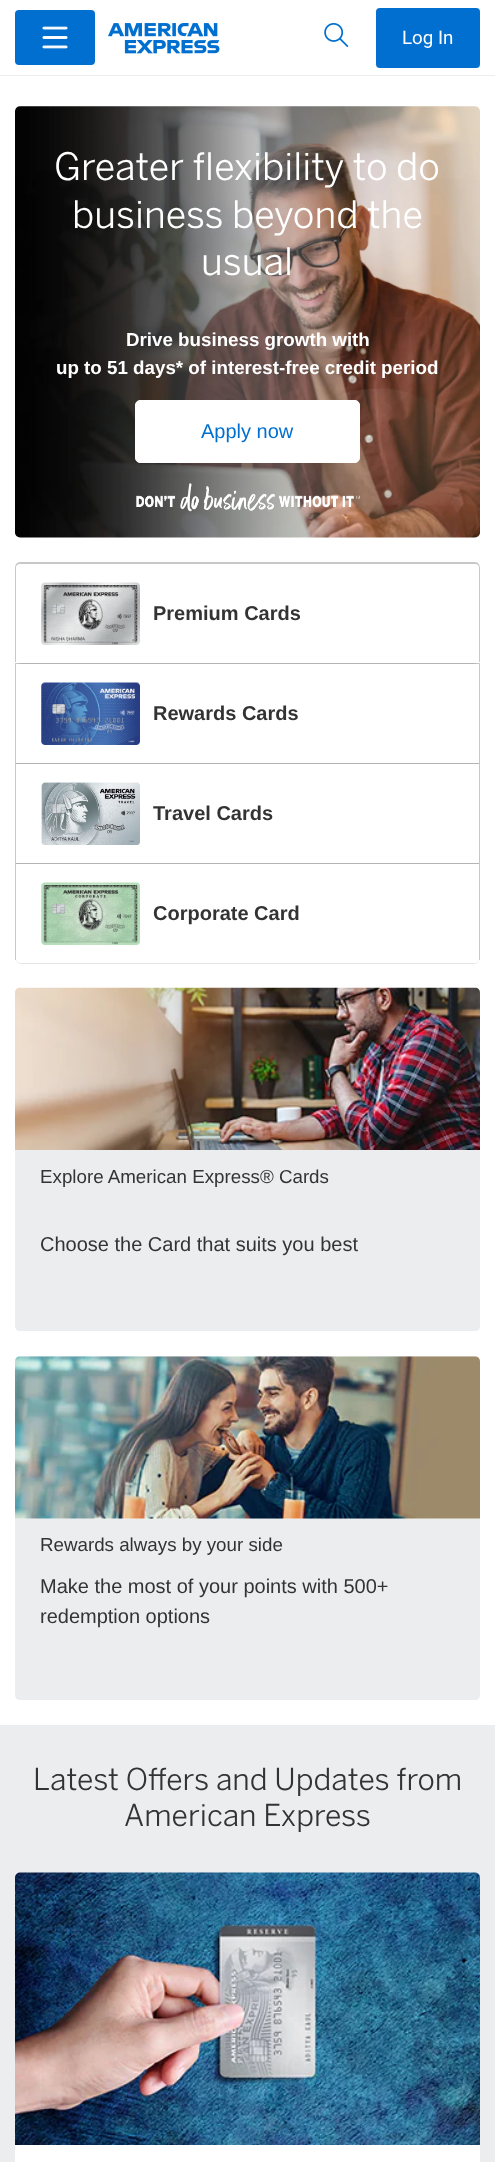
<svg xmlns="http://www.w3.org/2000/svg" width="495" height="2162" viewBox="0 0 495 2162">
  <defs>
    <filter id="blur1" x="-50%" y="-200%" width="200%" height="500%"><feGaussianBlur stdDeviation="0.5"/></filter>
  </defs>
  <rect width="100%" height="100%" fill="#ffffff"/>
  <rect x="0" y="75" width="495" height="1" fill="#ecedee"/>
  <rect x="15" y="10" width="80" height="55" rx="4" fill="#006fcf"/>
  <image x="42" y="26" width="26" height="23" href="img1.png"/>
  <image x="108" y="23" width="112" height="31" href="img2.png"/>
  <image x="324" y="23" width="25" height="24" href="img3.png"/>
  <rect x="376" y="8" width="104" height="60" rx="4" fill="#006fcf"/>
  <text x="402" y="44" font-family="Roboto" font-size="18.75" fill="#ffffff">Log In</text>
  <image x="14" y="106" width="466" height="432" href="img4.png"/>
  <text x="54" y="180" font-family="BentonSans" font-size="37.5" fill="#ffffff">Greater flexibility to do</text>
  <text x="72" y="228" font-family="BentonSans" font-size="37.5" fill="#ffffff">business beyond the</text>
  <text x="201" y="275" font-family="BentonSans" font-size="37.5" fill="#ffffff">usual</text>
  <text x="126" y="346" font-family="Liberation Sans" font-size="18.75" font-weight="bold" fill="#ffffff">Drive business growth with</text>
  <text x="56" y="374" font-family="Liberation Sans" font-size="18.75" font-weight="bold" fill="#ffffff">up to 51 days* of interest-free credit period</text>
  <rect x="135.5" y="400.5" width="224" height="62" rx="4.5" fill="#ffffff" stroke="#ffffff"/>
  <text x="201" y="438" font-family="Liberation Sans" font-size="20" fill="#006fcf">Apply now</text>
  <image x="136" y="483" width="224" height="29" href="img5.png"/>
  <path d="M20 562H475C478 562 480 565 480 568V662H15V568C15 565 17 562 20 562ZM20 564H475C477 564 479 565 479 568V662H16V568C16 565 18 564 20 564Z" fill="#c8c9c7" fill-rule="evenodd"/>
  <rect x="15" y="663" width="465" height="1" fill="#c8c9c7"/>
  <rect x="479" y="663" width="1" height="100" fill="#c8c9c7"/>
  <rect x="15" y="663" width="1" height="100" fill="#c8c9c7"/>
  <rect x="16" y="565" width="463" height="99" rx="5" fill="#000000" fill-opacity="0.1" filter="url(#blur1)"/>
  <path d="M21 564H474C477 564 479 566 479 569V663H16V569C16 566 18 564 21 564Z" fill="#ffffff"/>
  <image x="41" y="582" width="99" height="63" href="img6.png"/>
  <text x="153" y="620" font-family="Liberation Sans" font-size="20" font-weight="bold" fill="#333333">Premium Cards</text>
  <rect x="15" y="763" width="465" height="1" fill="#c8c9c7"/>
  <rect x="479" y="763" width="1" height="100" fill="#c8c9c7"/>
  <rect x="15" y="763" width="1" height="100" fill="#c8c9c7"/>
  <rect x="16" y="665" width="463" height="99" fill="#000000" fill-opacity="0.1" filter="url(#blur1)"/>
  <rect x="16" y="664" width="463" height="99" fill="#ffffff"/>
  <image x="41" y="682" width="99" height="63" href="img7.png"/>
  <text x="153" y="720" font-family="Liberation Sans" font-size="20" font-weight="bold" fill="#333333">Rewards Cards</text>
  <rect x="15" y="863" width="465" height="1" fill="#c8c9c7"/>
  <rect x="479" y="863" width="1" height="97" fill="#c8c9c7"/>
  <rect x="15" y="863" width="1" height="97" fill="#c8c9c7"/>
  <rect x="16" y="765" width="463" height="99" fill="#000000" fill-opacity="0.1" filter="url(#blur1)"/>
  <rect x="16" y="764" width="463" height="99" fill="#ffffff"/>
  <image x="41" y="782" width="99" height="63" href="img8.png"/>
  <text x="153" y="820" font-family="Liberation Sans" font-size="20" font-weight="bold" fill="#333333">Travel Cards</text>
  <rect x="16" y="865" width="463" height="99" rx="5" fill="#000000" fill-opacity="0.1" filter="url(#blur1)"/>
  <path d="M16 864H479V958C479 961 477 963 474 963H21C18 963 16 961 16 958Z" fill="#ffffff"/>
  <image x="41" y="882" width="99" height="63" href="img9.png"/>
  <text x="153" y="920" font-family="Liberation Sans" font-size="20" font-weight="bold" fill="#333333">Corporate Card</text>
  <image x="15" y="987" width="465" height="163" href="img10.png"/>
  <path d="M15 1150H480V1326C480 1329 478 1331 475 1331H20C17 1331 15 1329 15 1326Z" fill="#ecedee"/>
  <text x="40" y="1183" font-family="Liberation Sans" font-size="18.75" fill="#333333">Explore American Express® Cards</text>
  <text x="40" y="1251" font-family="Liberation Sans" font-size="20" fill="#333333">Choose the Card that suits you best</text>
  <image x="15" y="1356" width="465" height="163" href="img11.png"/>
  <path d="M15 1519H480V1695C480 1698 478 1700 475 1700H20C17 1700 15 1698 15 1695Z" fill="#ecedee"/>
  <text x="40" y="1551" font-family="Liberation Sans" font-size="18.75" fill="#333333">Rewards always by your side</text>
  <text x="40" y="1593" font-family="Liberation Sans" font-size="20" fill="#333333">Make the most of your points with 500+</text>
  <text x="40" y="1623" font-family="Liberation Sans" font-size="20" fill="#333333">redemption options</text>
  <rect x="0" y="1725" width="495" height="437" fill="#ecedee"/>
  <text x="33" y="1790" font-family="BentonSans" font-size="30" fill="#333333">Latest Offers and Updates from</text>
  <text x="124" y="1826" font-family="BentonSans" font-size="30" fill="#333333">American Express</text>
  <rect x="15" y="1873" width="465" height="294" rx="5" fill="#ffffff"/>
  <image x="14" y="1872" width="466" height="273" href="img12.png"/>
</svg>
